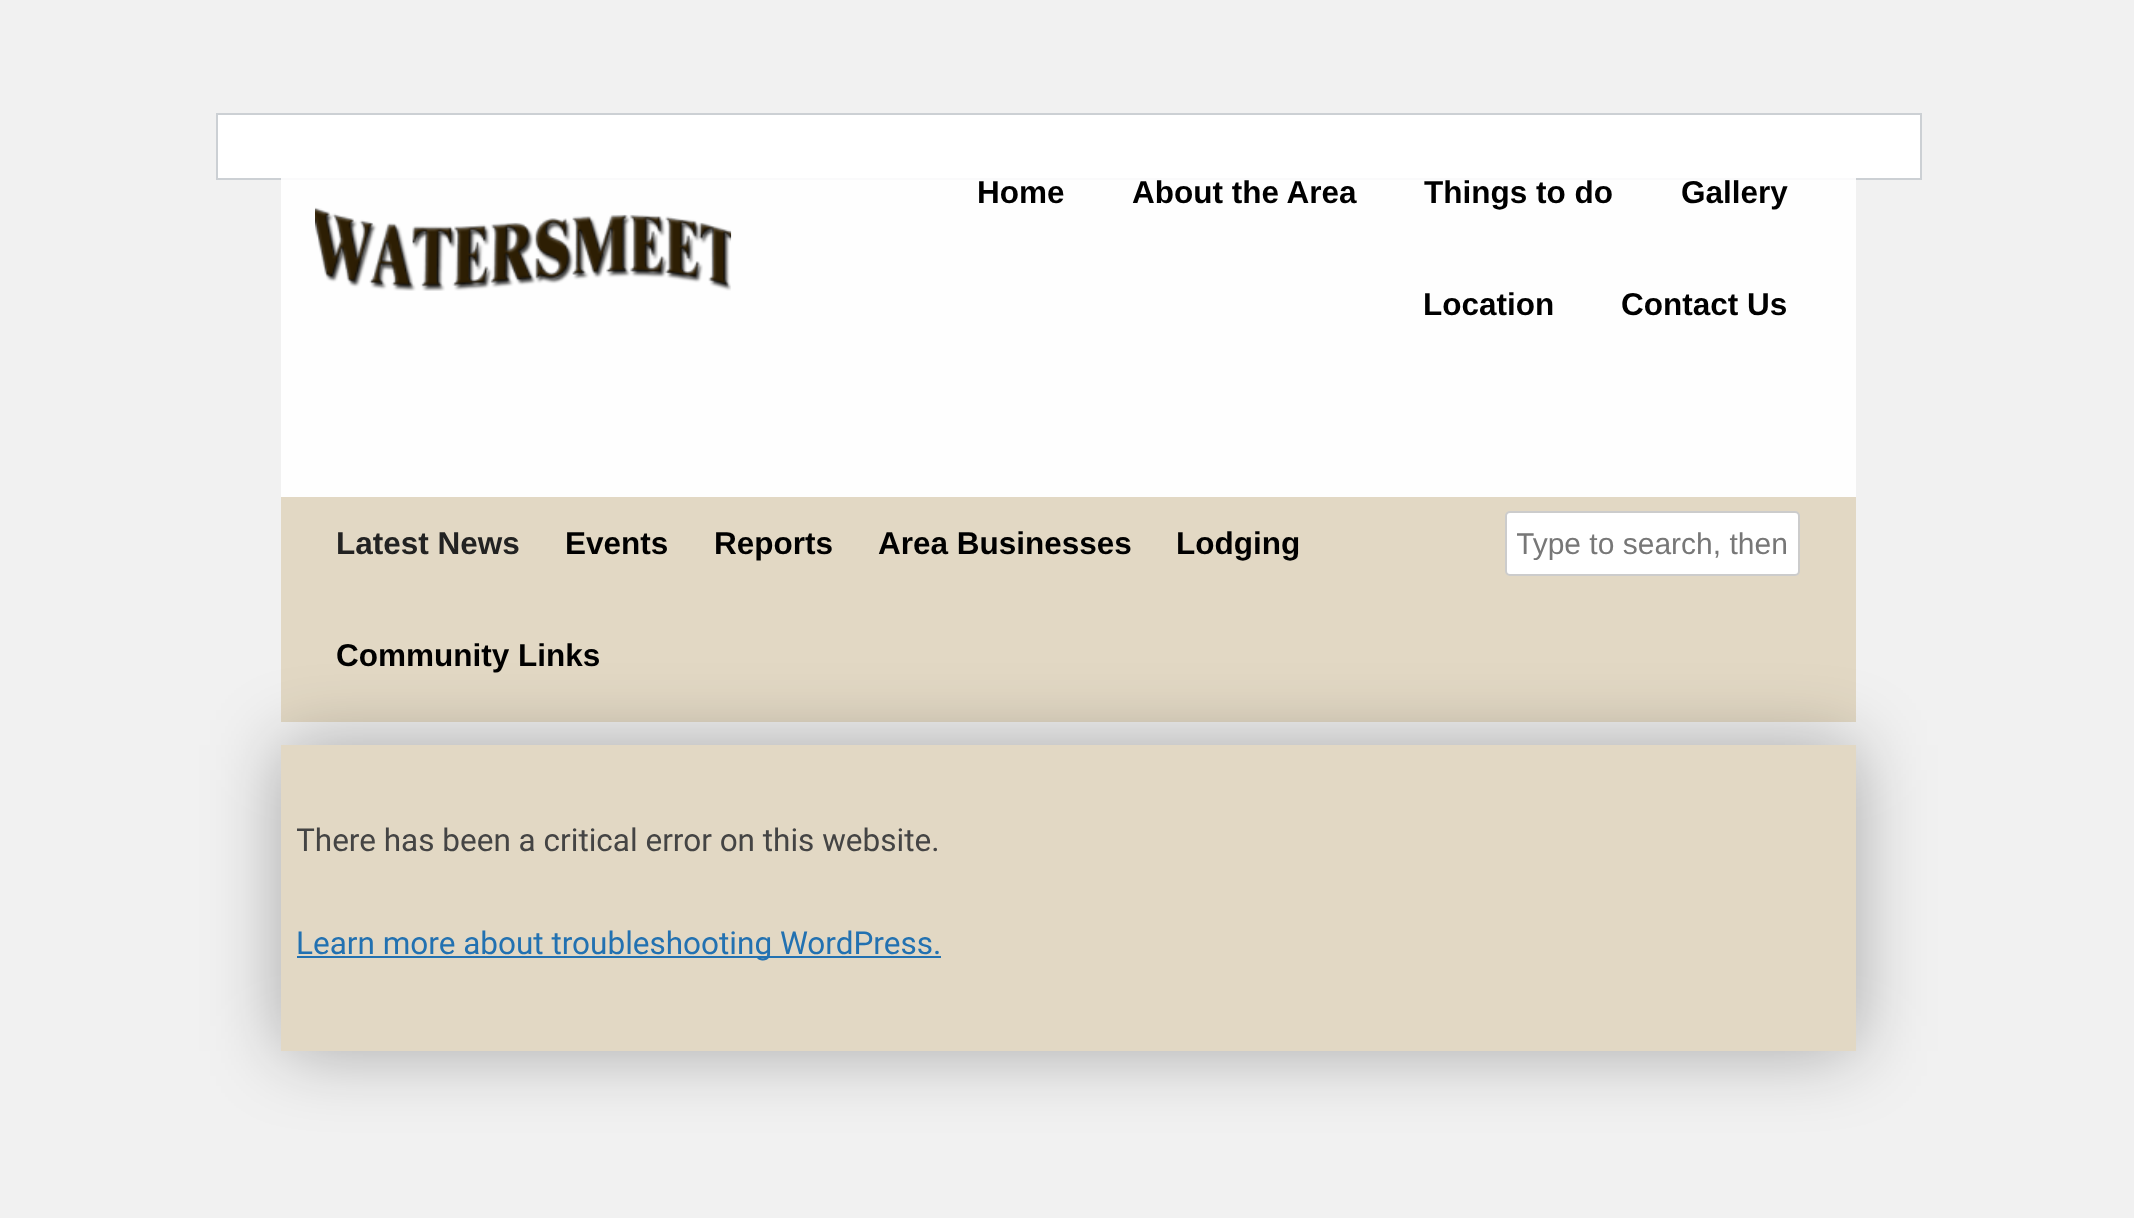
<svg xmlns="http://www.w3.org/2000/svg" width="2134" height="1218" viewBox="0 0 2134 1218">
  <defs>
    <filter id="blur1" x="-50%" y="-200%" width="200%" height="500%"><feGaussianBlur stdDeviation="37"/></filter>
    <clipPath id="clip1"><rect x="1517" y="527" width="272" height="33"/></clipPath>
    <clipPath id="clip2"><rect x="297" y="761" width="1544" height="252"/></clipPath>
  </defs>
  <rect width="100%" height="100%" fill="#f1f1f1"/>
  <rect x="217" y="114" width="1704" height="65" fill="#ffffff" stroke="#ccd0d4" stroke-width="2"/>
  <rect x="281" y="178" width="1575" height="319" fill="#ffffff" fill-opacity="0.89"/>
  <image x="315" y="207" width="417" height="84" href="img1.png"/>
  <text x="977" y="203" font-family="Liberation Sans" font-size="31.5" font-weight="bold" fill="#000000">Home</text>
  <text x="1132" y="203" font-family="Liberation Sans" font-size="31.5" font-weight="bold" fill="#000000">About the Area</text>
  <text x="1424" y="203" font-family="Liberation Sans" font-size="31.5" font-weight="bold" fill="#000000">Things to do</text>
  <text x="1681" y="203" font-family="Liberation Sans" font-size="31.5" font-weight="bold" fill="#000000">Gallery</text>
  <text x="1423" y="315" font-family="Liberation Sans" font-size="31.5" font-weight="bold" fill="#000000">Location</text>
  <text x="1621" y="315" font-family="Liberation Sans" font-size="31.5" font-weight="bold" fill="#000000">Contact Us</text>
  <rect x="281" y="497" width="1575" height="225" fill="#e2d8c4"/>
  <text x="336" y="554" font-family="Liberation Sans" font-size="31.5" font-weight="bold" fill="#222222">Latest News</text>
  <text x="565" y="554" font-family="Liberation Sans" font-size="31.5" font-weight="bold" fill="#000000">Events</text>
  <text x="714" y="554" font-family="Liberation Sans" font-size="31.5" font-weight="bold" fill="#000000">Reports</text>
  <text x="878" y="554" font-family="Liberation Sans" font-size="31.5" font-weight="bold" fill="#000000">Area Businesses</text>
  <text x="1176" y="554" font-family="Liberation Sans" font-size="31.5" font-weight="bold" fill="#000000">Lodging</text>
  <rect x="281" y="745" width="1575" height="306" fill="#000000" fill-opacity="0.31" filter="url(#blur1)"/>
  <text x="336" y="666" font-family="Liberation Sans" font-size="31.5" font-weight="bold" fill="#000000">Community Links</text>
  <rect x="1506" y="512" width="293" height="63" rx="4" fill="#ffffff" stroke="#cccccc" stroke-width="2"/>
  <g clip-path="url(#clip1)">
    <text x="1516" y="554" font-family="Liberation Sans" font-size="30" fill="#777777">Type to search, then</text>
  </g>
  <rect x="281" y="745" width="1575" height="306" fill="#e2d8c4"/>
  <g clip-path="url(#clip2)">
    <text x="296" y="851" font-family="Roboto" font-size="31.5" fill="#444444">There has been a critical error on this website.</text>
  </g>
  <rect x="297" y="956" width="644" height="2" fill="#2271b1"/>
  <text x="296" y="954" font-family="Roboto" font-size="31.5" fill="#2271b1">Learn more about troubleshooting WordPress.</text>
</svg>
